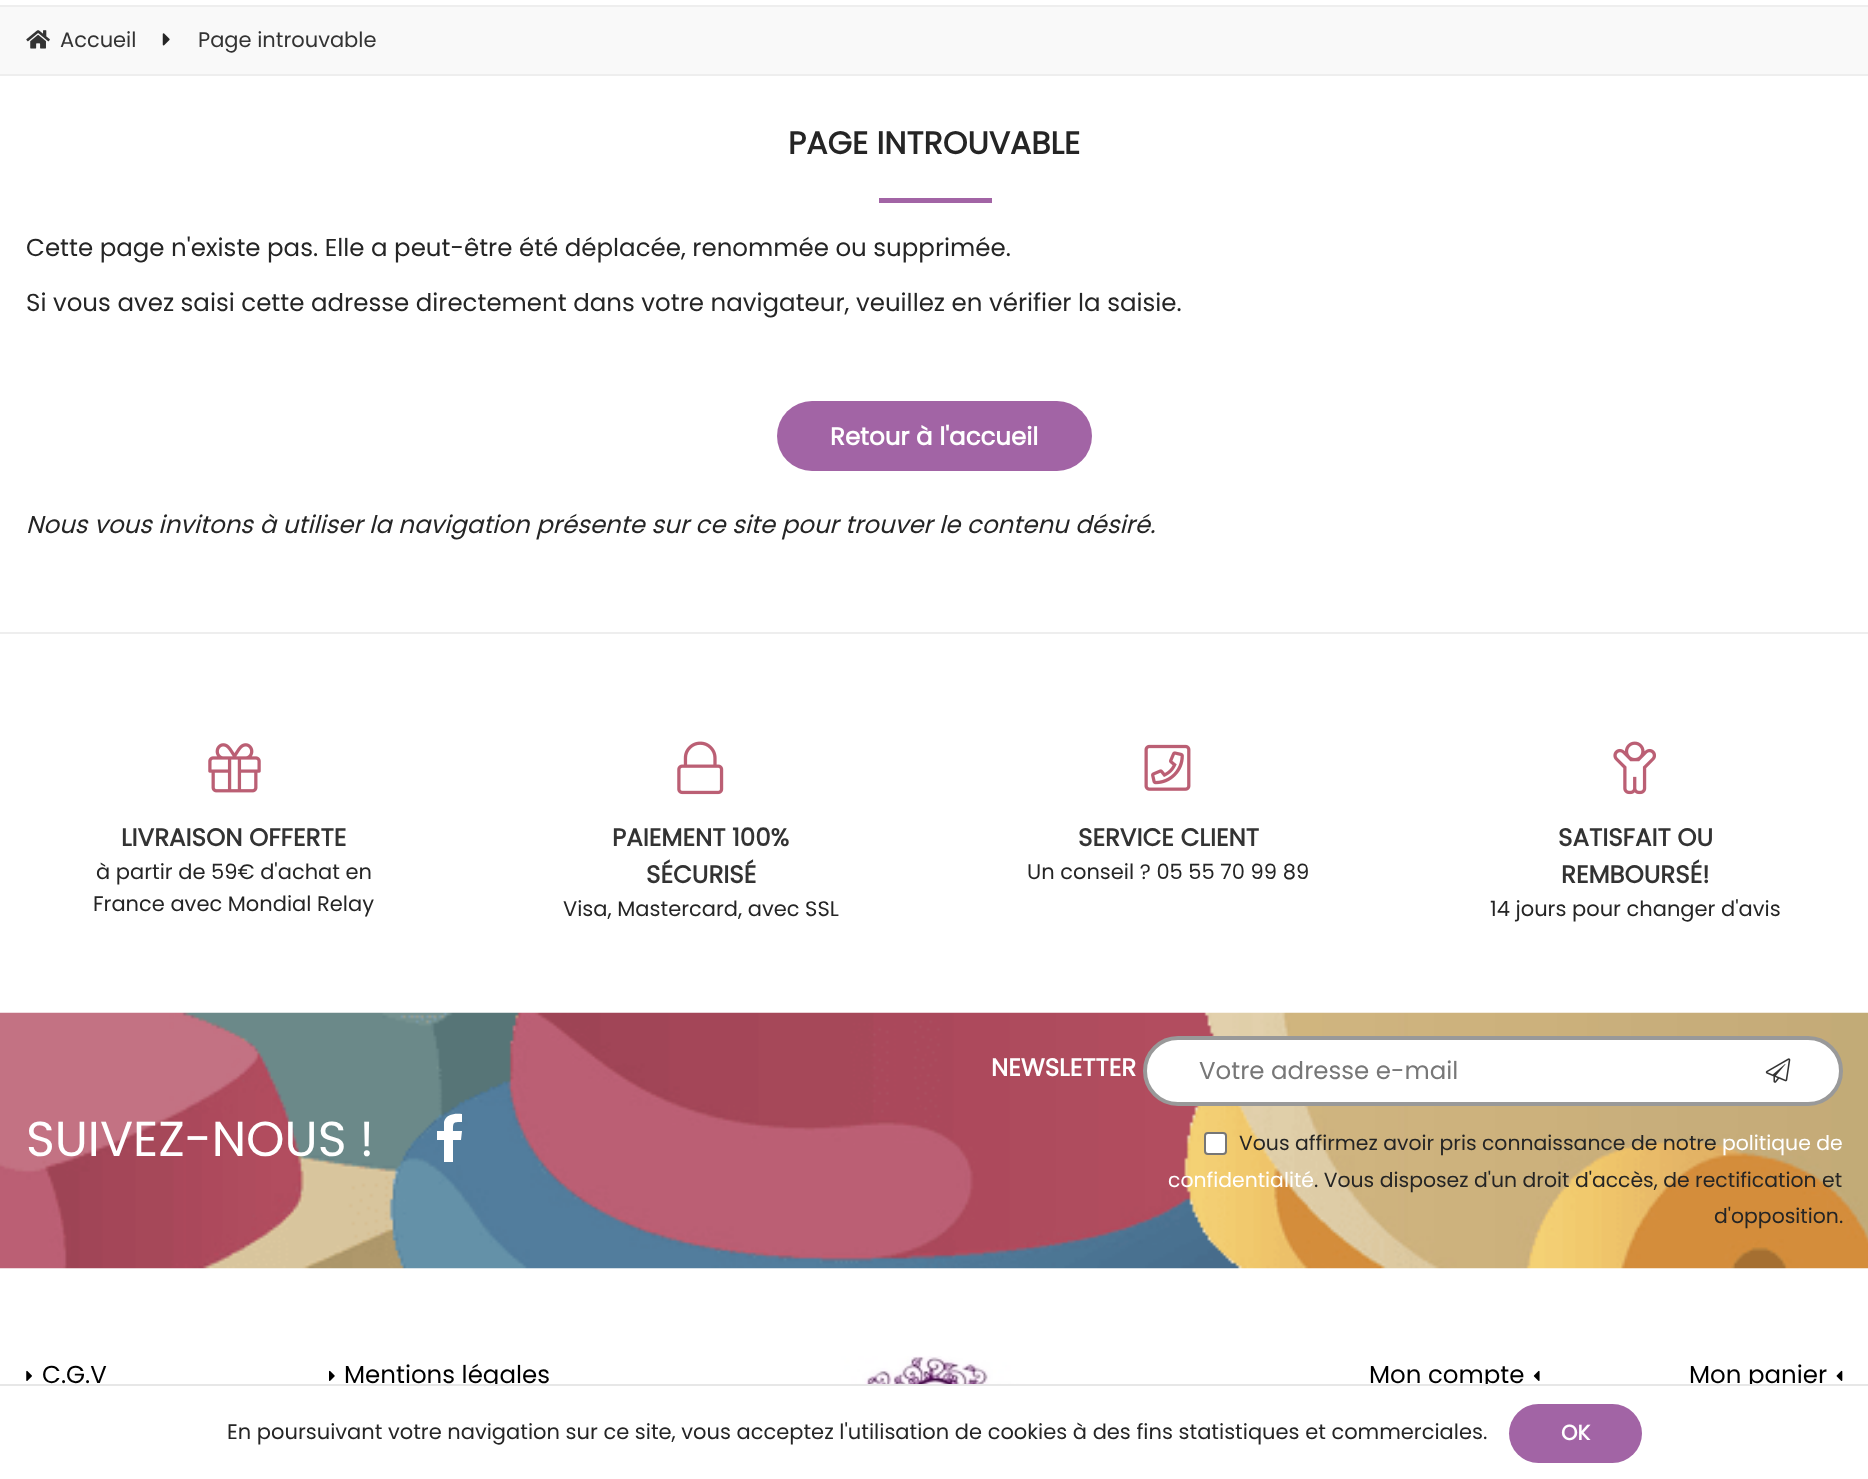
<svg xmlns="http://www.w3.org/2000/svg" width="1868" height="1479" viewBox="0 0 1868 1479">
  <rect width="100%" height="100%" fill="#ffffff"/>
  <rect x="0" y="5" width="1868" height="2" fill="#eeeeee"/>
  <rect x="0" y="7" width="1868" height="67" fill="#f9f9f9"/>
  <rect x="0" y="74" width="1868" height="2" fill="#eeeeee"/>
  <image x="26" y="30" width="24" height="19" href="img1.png"/>
  <text x="60" y="47" font-family="Poppins" font-size="21" fill="#333333">Accueil</text>
  <image x="162" y="33" width="8" height="13" href="img2.png"/>
  <text x="198" y="47" font-family="Poppins" font-size="21" fill="#333333">Page introuvable</text>
  <text x="788" y="154" font-family="Poppins" font-size="31.5" font-weight="bold" fill="#252525">PAGE INTROUVABLE</text>
  <rect x="879" y="198" width="113" height="5" fill="#a264a5"/>
  <text x="26" y="256" font-family="Poppins" font-size="24.5" fill="#252525">Cette page n'existe pas. Elle a peut-être été déplacée, renommée ou supprimée.</text>
  <text x="26" y="311" font-family="Poppins" font-size="24.5" fill="#252525">Si vous avez saisi cette adresse directement dans votre navigateur, veuillez en vérifier la saisie.</text>
  <rect x="777" y="401" width="315" height="70" rx="35" fill="#a264a5"/>
  <text x="830" y="445" font-family="Poppins" font-size="24.5" font-weight="bold" fill="#ffffff">Retour à l'accueil</text>
  <text x="26" y="533" font-family="Poppins" font-size="24.5" font-style="italic" fill="#252525">Nous vous invitons à utiliser la navigation présente sur ce site pour trouver le contenu désiré.</text>
  <rect x="0" y="632" width="1868" height="2" fill="#eeeeee"/>
  <image x="208" y="743" width="53" height="50" href="img3.png"/>
  <text x="121" y="846" font-family="Poppins" font-size="24.5" font-weight="bold" fill="#333333">LIVRAISON OFFERTE</text>
  <text x="96" y="879" font-family="Poppins" font-size="21" fill="#252525">à partir de 59€ d'achat en</text>
  <text x="93" y="911" font-family="Poppins" font-size="21" fill="#252525">France avec Mondial Relay</text>
  <image x="677" y="741" width="47" height="54" href="img4.png"/>
  <text x="612" y="846" font-family="Poppins" font-size="24.5" font-weight="bold" fill="#333333">PAIEMENT 100%</text>
  <text x="646" y="883" font-family="Poppins" font-size="24.5" font-weight="bold" fill="#333333">SÉCURISÉ</text>
  <text x="563" y="916" font-family="Poppins" font-size="21" fill="#252525">Visa, Mastercard, avec SSL</text>
  <image x="1144" y="744" width="47" height="47" href="img5.png"/>
  <text x="1078" y="846" font-family="Poppins" font-size="24.5" font-weight="bold" fill="#333333">SERVICE CLIENT</text>
  <text x="1027" y="879" font-family="Poppins" font-size="21" fill="#252525">Un conseil ? 05 55 70 99 89</text>
  <image x="1613" y="741" width="43" height="54" href="img6.png"/>
  <text x="1558" y="846" font-family="Poppins" font-size="24.5" font-weight="bold" fill="#333333">SATISFAIT OU</text>
  <text x="1561" y="883" font-family="Poppins" font-size="24.5" font-weight="bold" fill="#333333">REMBOURSÉ!</text>
  <text x="1490" y="916" font-family="Poppins" font-size="21" fill="#252525">14 jours pour changer d'avis</text>
  <image x="0" y="1012" width="1868" height="257" href="img7.png"/>
  <text x="26" y="1156" font-family="Poppins" font-size="49" fill="#ffffff">SUIVEZ-NOUS !</text>
  <path d="M462 1114V1122C453 1122 453 1122 453 1131H462L461 1140H453V1162H444V1140H437V1131H444V1122C446 1114 455 1113 462 1114Z" fill="#ffffff"/>
  <text x="991" y="1076" font-family="Poppins" font-size="24.5" font-weight="bold" fill="#ffffff">NEWSLETTER</text>
  <rect x="1145" y="1038" width="696" height="66" rx="33" fill="#ffffff" stroke="#999999" stroke-width="4"/>
  <text x="1199" y="1079" font-family="Poppins" font-size="24.5" fill="#777777">Votre adresse e-mail</text>
  <image x="1765" y="1058" width="26" height="25" href="img8.png"/>
  <rect x="1205" y="1133" width="21" height="21" rx="3" fill="#ffffff" stroke="#767676" stroke-width="2"/>
  <text x="1239" y="1150" font-family="Poppins" font-size="20.4" fill="#252525">Vous affirmez avoir pris connaissance de notre</text>
  <text x="1722" y="1150" font-family="Poppins" font-size="20.4" fill="#ffffff">politique de</text>
  <text x="1168" y="1187" font-family="Poppins" font-size="20.4" fill="#ffffff">confidentialité</text>
  <text x="1314" y="1187" font-family="Poppins" font-size="20.4" fill="#252525">. Vous disposez d'un droit d'accès, de rectification et</text>
  <text x="1714" y="1223" font-family="Poppins" font-size="20.4" fill="#252525">d'opposition.</text>
  <image x="26" y="1370" width="6" height="11" href="img9.png"/>
  <text x="42" y="1383" font-family="Poppins" font-size="24.5" fill="#000000">C.G.V</text>
  <image x="329" y="1370" width="6" height="11" href="img10.png"/>
  <text x="344" y="1383" font-family="Poppins" font-size="24.5" fill="#000000">Mentions légales</text>
  <image x="814" y="1356" width="239" height="28" href="img11.png"/>
  <text x="1369" y="1383" font-family="Poppins" font-size="24.5" fill="#000000">Mon compte</text>
  <image x="1533" y="1370" width="7" height="11" href="img12.png"/>
  <text x="1689" y="1383" font-family="Poppins" font-size="24.5" fill="#000000">Mon panier</text>
  <image x="1836" y="1370" width="7" height="11" href="img13.png"/>
  <rect x="485" y="1386" width="1268" height="4" fill="#ffffff"/>
  <rect x="0" y="1384" width="1868" height="2" fill="#e7e7e7"/>
  <text x="227" y="1439" font-family="Poppins" font-size="21" fill="#252525">En poursuivant votre navigation sur ce site, vous acceptez l'utilisation de cookies à des fins statistiques et commerciales.</text>
  <rect x="1509" y="1404" width="133" height="59" rx="29.5" fill="#a264a5"/>
  <text x="1561" y="1440" font-family="Poppins" font-size="21" font-weight="bold" fill="#ffffff">OK</text>
</svg>
